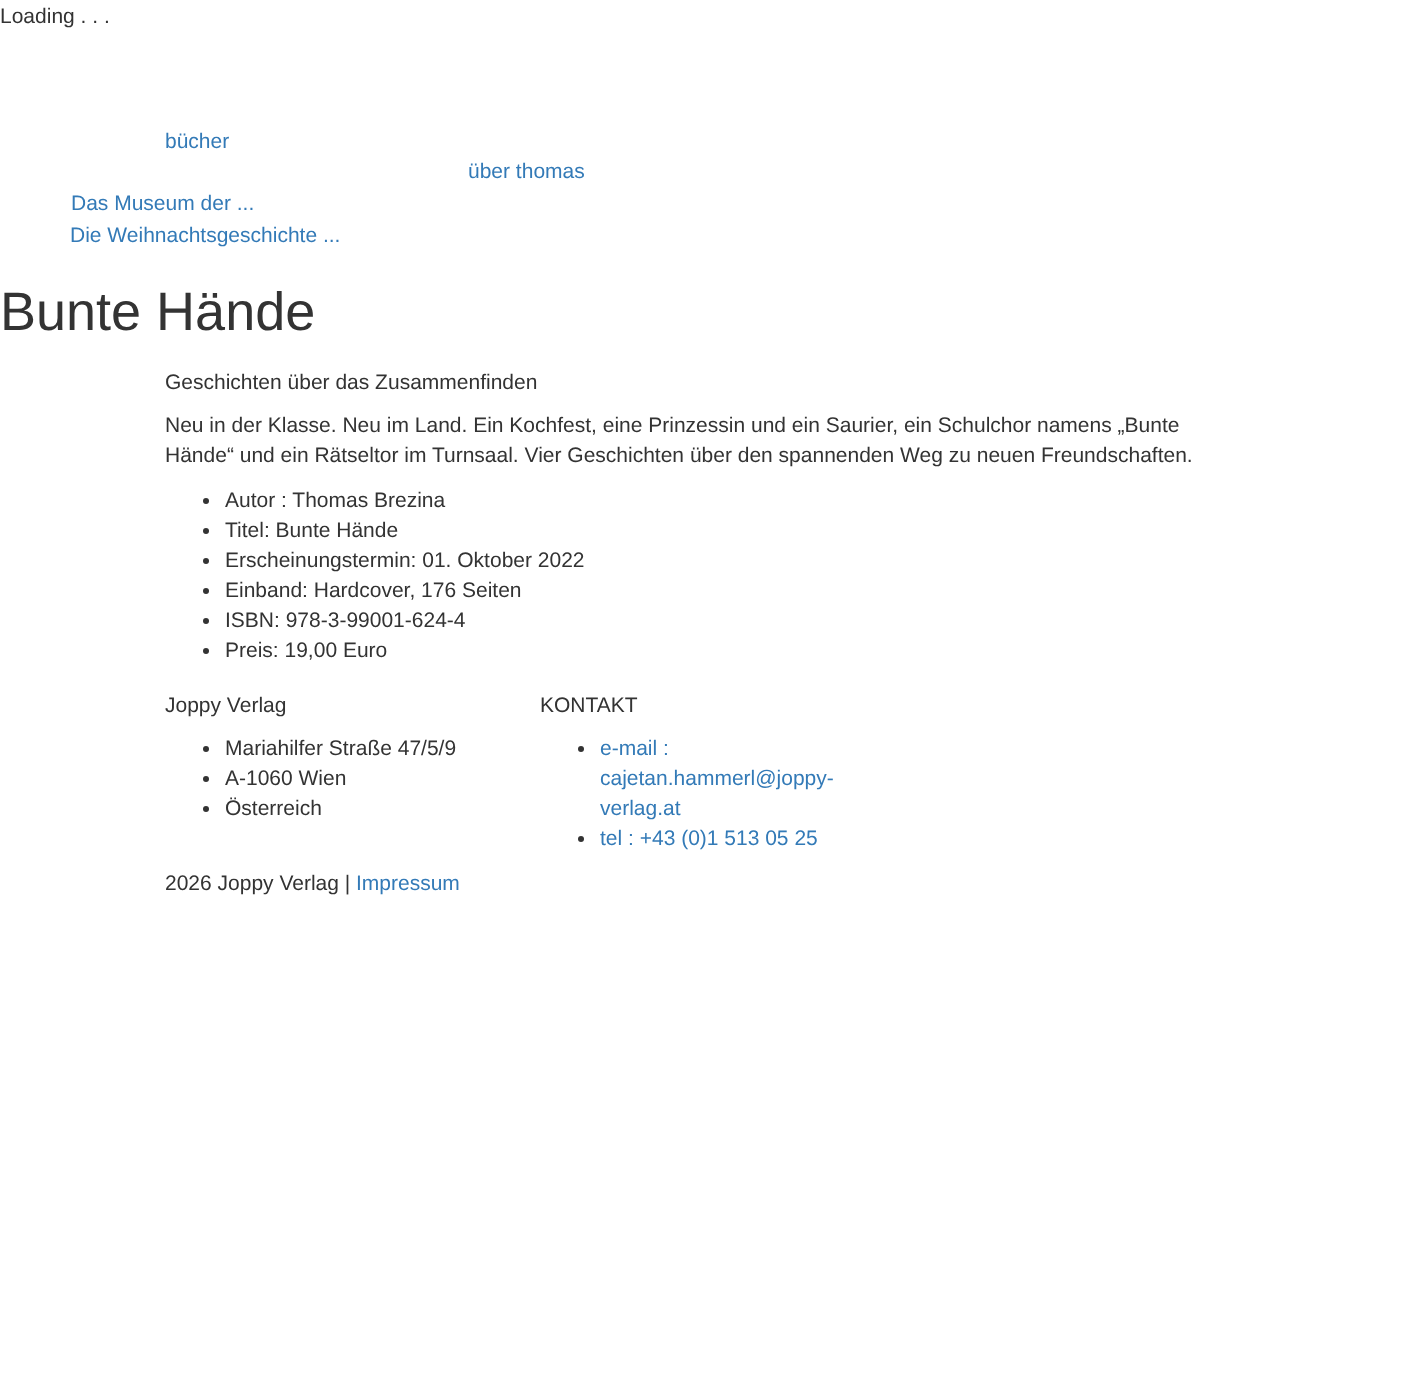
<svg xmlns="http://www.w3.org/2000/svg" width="1410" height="1397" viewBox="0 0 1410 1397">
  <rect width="100%" height="100%" fill="#ffffff"/>
  <text x="0" y="23" font-family="Liberation Sans" font-size="21" fill="#333333">Loading . . .</text>
  <text x="165" y="148" font-family="Liberation Sans" font-size="21" fill="#337ab7">bücher</text>
  <text x="468" y="178" font-family="Liberation Sans" font-size="21" fill="#337ab7">über thomas</text>
  <text x="71" y="210" font-family="Liberation Sans" font-size="21" fill="#337ab7">Das Museum der ...</text>
  <text x="70" y="242" font-family="Liberation Sans" font-size="21" fill="#337ab7">Die Weihnachtsgeschichte ...</text>
  <text x="0" y="330" font-family="Liberation Sans" font-size="54" fill="#333333">Bunte Hände</text>
  <text x="165" y="389" font-family="Liberation Sans" font-size="21" fill="#333333">Geschichten über das Zusammenfinden</text>
  <text x="165" y="432" font-family="Liberation Sans" font-size="21" fill="#333333">Neu in der Klasse. Neu im Land. Ein Kochfest, eine Prinzessin und ein Saurier, ein Schulchor namens „Bunte</text>
  <text x="165" y="462" font-family="Liberation Sans" font-size="21" fill="#333333">Hände“ und ein Rätseltor im Turnsaal. Vier Geschichten über den spannenden Weg zu neuen Freundschaften.</text>
  <circle cx="206" cy="501" r="3" fill="#333333"/>
  <text x="225" y="507" font-family="Liberation Sans" font-size="21" fill="#333333">Autor : Thomas Brezina</text>
  <circle cx="206" cy="531" r="3" fill="#333333"/>
  <text x="225" y="537" font-family="Liberation Sans" font-size="21" fill="#333333">Titel: Bunte Hände</text>
  <circle cx="206" cy="561" r="3" fill="#333333"/>
  <text x="225" y="567" font-family="Liberation Sans" font-size="21" fill="#333333">Erscheinungstermin: 01. Oktober 2022</text>
  <circle cx="206" cy="591" r="3" fill="#333333"/>
  <text x="225" y="597" font-family="Liberation Sans" font-size="21" fill="#333333">Einband: Hardcover, 176 Seiten</text>
  <circle cx="206" cy="621" r="3" fill="#333333"/>
  <text x="225" y="627" font-family="Liberation Sans" font-size="21" fill="#333333">ISBN: 978-3-99001-624-4</text>
  <circle cx="206" cy="651" r="3" fill="#333333"/>
  <text x="225" y="657" font-family="Liberation Sans" font-size="21" fill="#333333">Preis: 19,00 Euro</text>
  <text x="165" y="712" font-family="Liberation Sans" font-size="21" fill="#333333">Joppy Verlag</text>
  <circle cx="206" cy="749" r="3" fill="#333333"/>
  <text x="225" y="755" font-family="Liberation Sans" font-size="21" fill="#333333">Mariahilfer Straße 47/5/9</text>
  <circle cx="206" cy="779" r="3" fill="#333333"/>
  <text x="225" y="785" font-family="Liberation Sans" font-size="21" fill="#333333">A-1060 Wien</text>
  <circle cx="206" cy="809" r="3" fill="#333333"/>
  <text x="225" y="815" font-family="Liberation Sans" font-size="21" fill="#333333">Österreich</text>
  <text x="540" y="712" font-family="Liberation Sans" font-size="21" fill="#333333">KONTAKT</text>
  <circle cx="581" cy="749" r="3" fill="#333333"/>
  <text x="600" y="755" font-family="Liberation Sans" font-size="21" fill="#337ab7">e-mail :</text>
  <text x="600" y="785" font-family="Liberation Sans" font-size="21" fill="#337ab7">cajetan.hammerl@joppy-</text>
  <text x="600" y="815" font-family="Liberation Sans" font-size="21" fill="#337ab7">verlag.at</text>
  <circle cx="581" cy="839" r="3" fill="#333333"/>
  <text x="600" y="845" font-family="Liberation Sans" font-size="21" fill="#337ab7">tel : +43 (0)1 513 05 25</text>
  <text x="165" y="890" font-family="Liberation Sans" font-size="21" fill="#333333">2026 Joppy Verlag |</text>
  <text x="356" y="890" font-family="Liberation Sans" font-size="21" fill="#337ab7">Impressum</text>
</svg>
